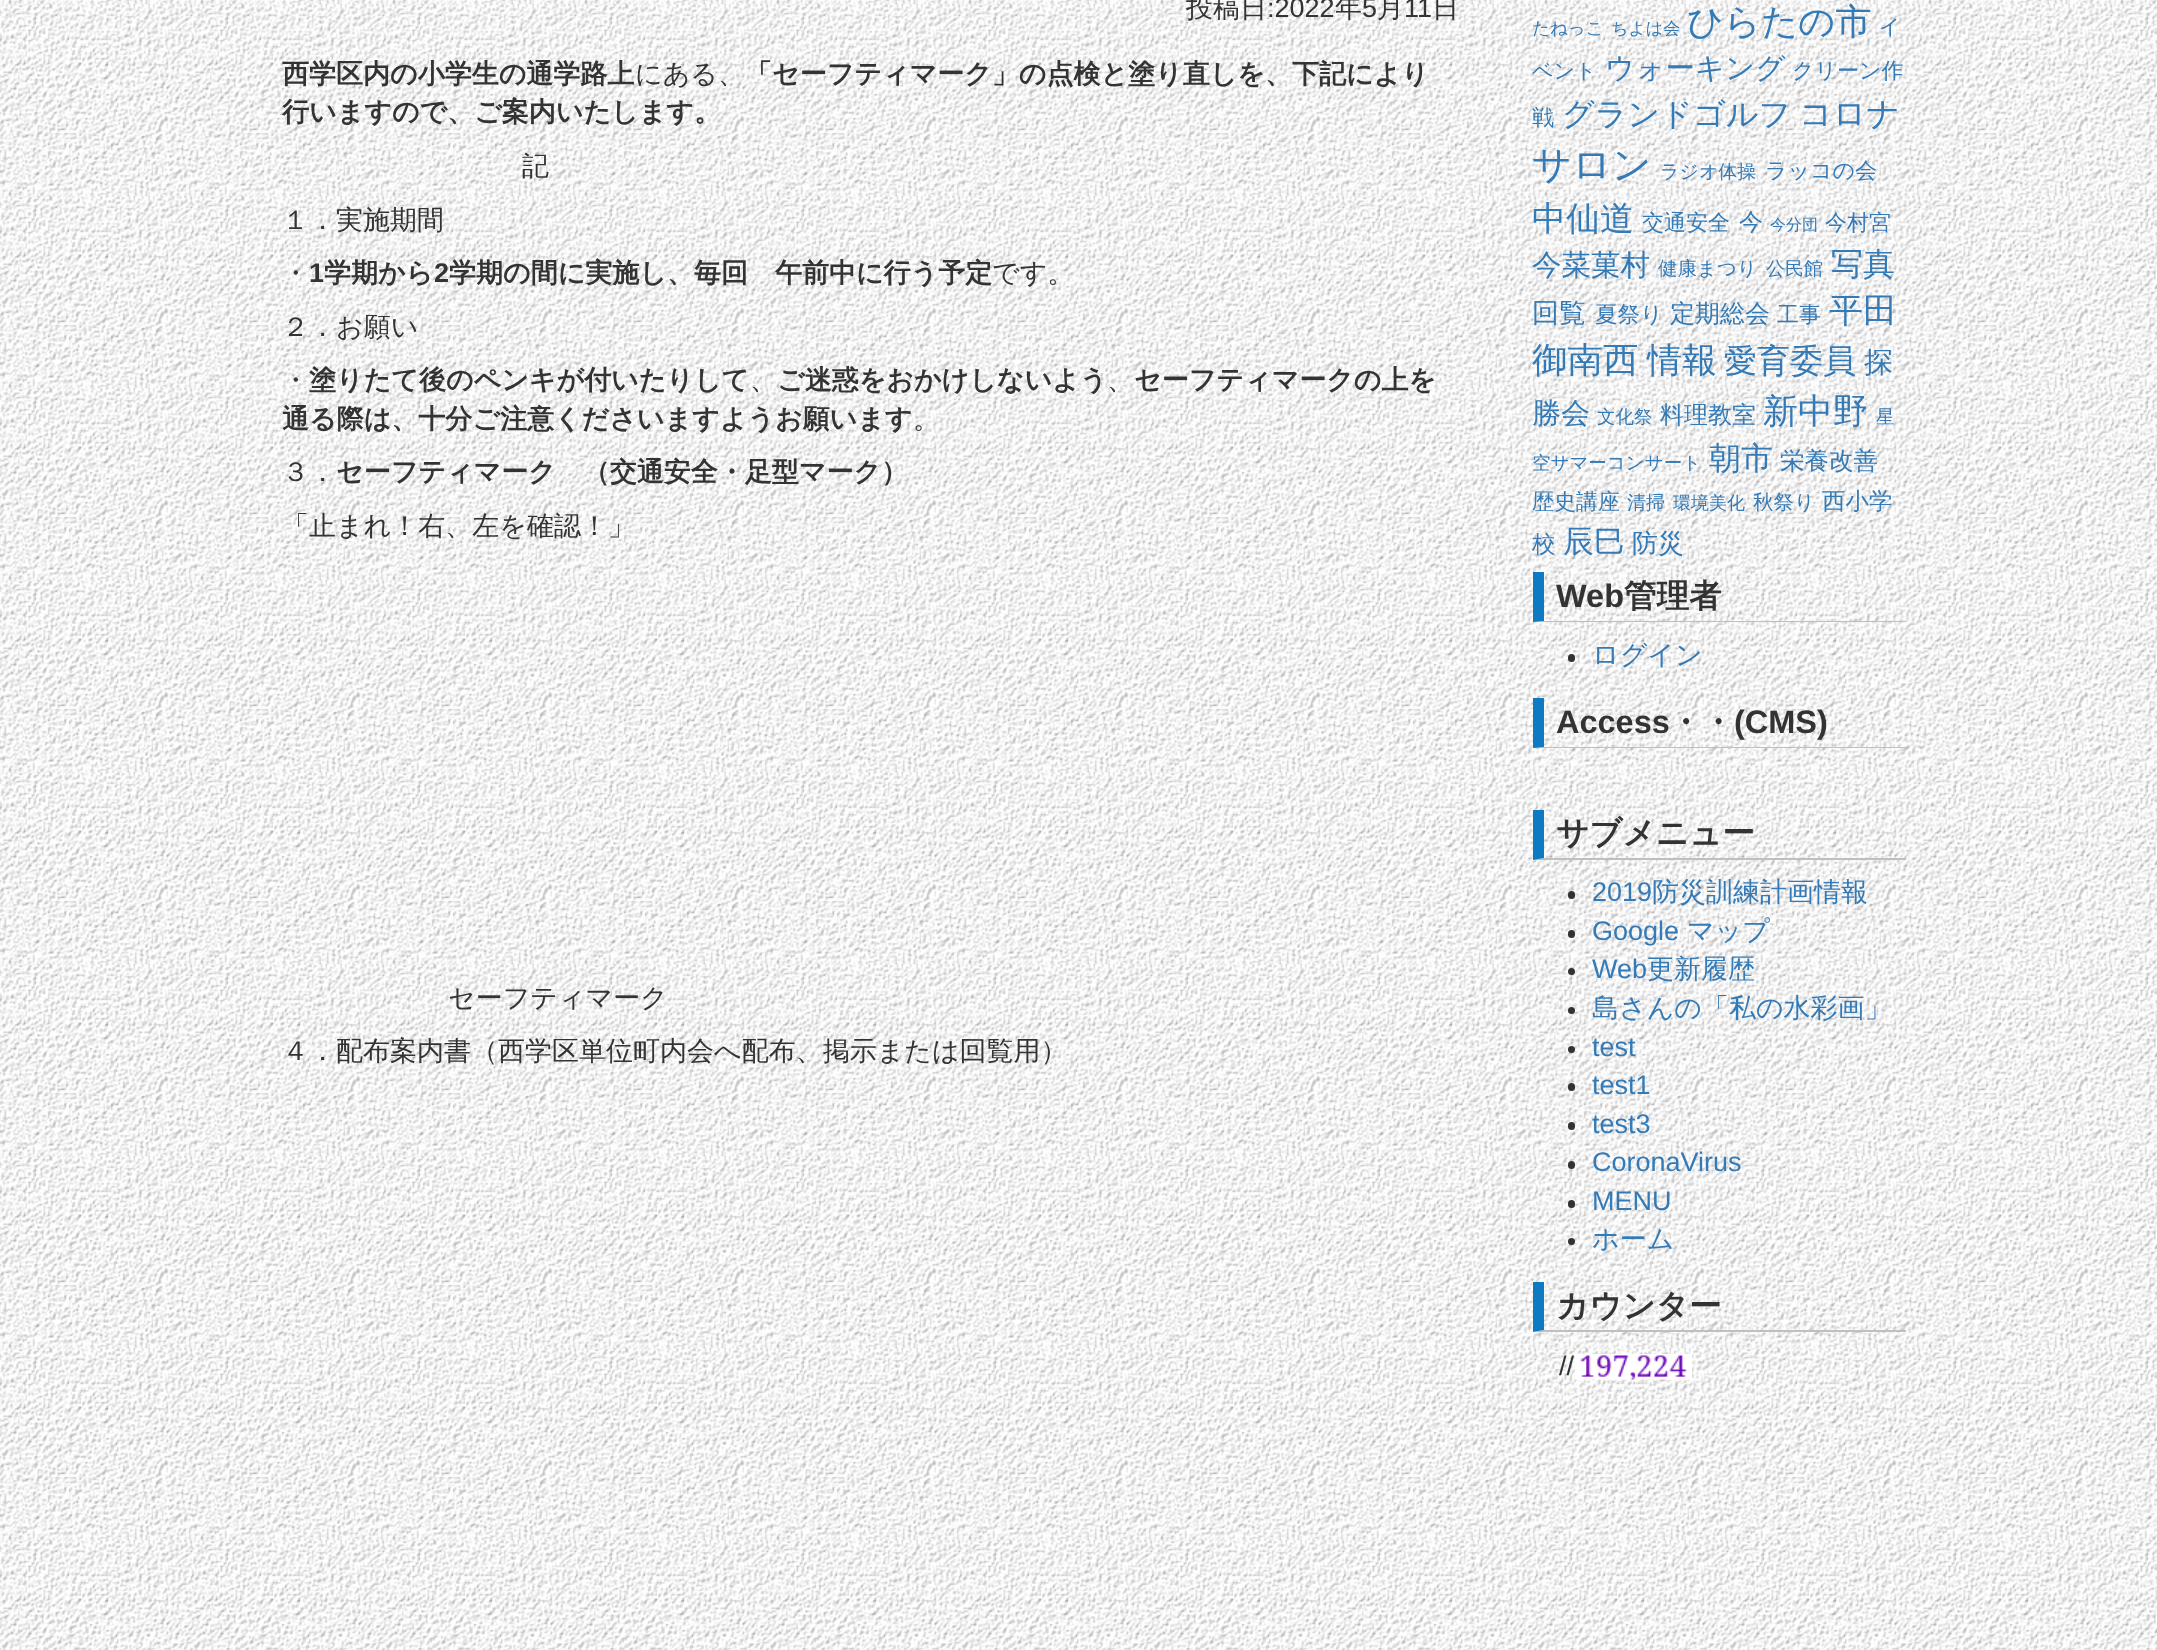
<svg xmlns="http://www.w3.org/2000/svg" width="2157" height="1650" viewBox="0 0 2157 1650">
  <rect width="100%" height="100%" fill="#ffffff"/>
  <image x="0" y="0" width="2157" height="1650" href="img1.png"/>
  <text x="1186" y="17" font-family="WenQuanYi Zen Hei" font-size="27" font-weight="500" fill="#333333">投稿日</text>
  <text x="1267" y="17" font-family="Liberation Sans" font-size="27" fill="#333333">:2022</text>
  <text x="1335" y="17" font-family="WenQuanYi Zen Hei" font-size="27" font-weight="500" fill="#333333">年</text>
  <text x="1362" y="17" font-family="Liberation Sans" font-size="27" fill="#333333">5</text>
  <text x="1377" y="17" font-family="WenQuanYi Zen Hei" font-size="27" font-weight="500" fill="#333333">月</text>
  <text x="1404" y="17" font-family="Liberation Sans" font-size="27" fill="#333333">11</text>
  <text x="1432" y="17" font-family="WenQuanYi Zen Hei" font-size="27" font-weight="500" fill="#333333">日</text>
  <text x="282" y="83" font-family="WenQuanYi Zen Hei" font-size="27" font-weight="bold" fill="#333333">西学区内の小学生の通学路上</text>
  <text x="635" y="83" font-family="WenQuanYi Zen Hei" font-size="27" font-weight="500" fill="#333333">にある、</text>
  <text x="745" y="83" font-family="WenQuanYi Zen Hei" font-size="27" font-weight="bold" fill="#333333">「セーフティマーク」の点検と塗り直しを、下記により</text>
  <text x="282" y="121" font-family="WenQuanYi Zen Hei" font-size="27" font-weight="bold" fill="#333333">行いますので、ご案内いたします。</text>
  <text x="522" y="175" font-family="WenQuanYi Zen Hei" font-size="27" font-weight="500" fill="#333333">記</text>
  <text x="282" y="229" font-family="WenQuanYi Zen Hei" font-size="27" font-weight="500" fill="#333333">１．実施期間</text>
  <text x="282" y="282" font-family="WenQuanYi Zen Hei" font-size="27" font-weight="500" fill="#333333">・</text>
  <text x="309" y="282" font-family="Liberation Sans" font-size="27" font-weight="bold" fill="#333333">1</text>
  <text x="324" y="282" font-family="WenQuanYi Zen Hei" font-size="27" font-weight="bold" fill="#333333">学期から</text>
  <text x="434" y="282" font-family="Liberation Sans" font-size="27" font-weight="bold" fill="#333333">2</text>
  <text x="449" y="282" font-family="WenQuanYi Zen Hei" font-size="27" font-weight="bold" fill="#333333">学期の間に実施し、毎回　午前中に行う予定</text>
  <text x="992" y="282" font-family="WenQuanYi Zen Hei" font-size="27" font-weight="500" fill="#333333">です。</text>
  <text x="282" y="336" font-family="WenQuanYi Zen Hei" font-size="27" font-weight="500" fill="#333333">２．お願い</text>
  <text x="282" y="389" font-family="WenQuanYi Zen Hei" font-size="27" font-weight="500" fill="#333333">・</text>
  <text x="309" y="389" font-family="WenQuanYi Zen Hei" font-size="27" font-weight="bold" fill="#333333">塗りたて後のペンキが付いたりして</text>
  <text x="777" y="389" font-family="WenQuanYi Zen Hei" font-size="27" font-weight="bold" fill="#333333">ご迷惑をおかけしないよう</text>
  <text x="1134" y="389" font-family="WenQuanYi Zen Hei" font-size="27" font-weight="bold" fill="#333333">セーフティマークの上を</text>
  <text x="750" y="389" font-family="WenQuanYi Zen Hei" font-size="27" font-weight="500" fill="#333333">、</text>
  <text x="1107" y="389" font-family="WenQuanYi Zen Hei" font-size="27" font-weight="500" fill="#333333">、</text>
  <text x="282" y="428" font-family="WenQuanYi Zen Hei" font-size="27" font-weight="bold" fill="#333333">通る際は、十分ご注意くださいますようお願います</text>
  <text x="913" y="428" font-family="WenQuanYi Zen Hei" font-size="27" font-weight="500" fill="#333333">。</text>
  <text x="282" y="481" font-family="WenQuanYi Zen Hei" font-size="27" font-weight="500" fill="#333333">３．</text>
  <text x="336" y="481" font-family="WenQuanYi Zen Hei" font-size="27" font-weight="bold" fill="#333333">セーフティマーク　（交通安全・足型マーク）</text>
  <text x="282" y="535" font-family="WenQuanYi Zen Hei" font-size="27" font-weight="500" fill="#333333">「止まれ！右、左を確認！」</text>
  <text x="448" y="1007" font-family="WenQuanYi Zen Hei" font-size="27" font-weight="500" fill="#333333">セーフティマーク</text>
  <text x="282" y="1060" font-family="WenQuanYi Zen Hei" font-size="27" font-weight="500" fill="#333333">４．配布案内書（西学区単位町内会へ配布、掲示または回覧用）</text>
  <text x="1532" y="34" font-family="WenQuanYi Zen Hei" font-size="17.5" font-weight="500" fill="#337ab7">たねっこ</text>
  <text x="1611" y="34" font-family="WenQuanYi Zen Hei" font-size="17" font-weight="500" fill="#337ab7">ちよは会</text>
  <text x="1687" y="34" font-family="WenQuanYi Zen Hei" font-size="36.25" font-weight="500" fill="#337ab7">ひらたの市</text>
  <text x="1879" y="34" font-family="WenQuanYi Zen Hei" font-size="21" font-weight="500" fill="#337ab7">イ</text>
  <text x="1532" y="78" font-family="WenQuanYi Zen Hei" font-size="21" font-weight="500" fill="#337ab7">ベント</text>
  <text x="1605" y="78" font-family="WenQuanYi Zen Hei" font-size="29.5" font-weight="500" fill="#337ab7">ウォーキング</text>
  <text x="1792" y="78" font-family="WenQuanYi Zen Hei" font-size="22" font-weight="500" fill="#337ab7">クリーン作</text>
  <text x="1532" y="125" font-family="WenQuanYi Zen Hei" font-size="22" font-weight="500" fill="#337ab7">戦</text>
  <text x="1562" y="125" font-family="WenQuanYi Zen Hei" font-size="32" font-weight="500" fill="#337ab7">グランドゴルフ</text>
  <text x="1799" y="125" font-family="WenQuanYi Zen Hei" font-size="33" font-weight="500" fill="#337ab7">コロナ</text>
  <text x="1532" y="178" font-family="WenQuanYi Zen Hei" font-size="39" font-weight="500" fill="#337ab7">サロン</text>
  <text x="1660" y="178" font-family="WenQuanYi Zen Hei" font-size="19" font-weight="500" fill="#337ab7">ラジオ体操</text>
  <text x="1765" y="178" font-family="WenQuanYi Zen Hei" font-size="22" font-weight="500" fill="#337ab7">ラッコの会</text>
  <text x="1532" y="230" font-family="WenQuanYi Zen Hei" font-size="34" font-weight="500" fill="#337ab7">中仙道</text>
  <text x="1642" y="230" font-family="WenQuanYi Zen Hei" font-size="22" font-weight="500" fill="#337ab7">交通安全</text>
  <text x="1739" y="230" font-family="WenQuanYi Zen Hei" font-size="24" font-weight="500" fill="#337ab7">今</text>
  <text x="1770" y="230" font-family="WenQuanYi Zen Hei" font-size="16" font-weight="500" fill="#337ab7">今分団</text>
  <text x="1825" y="230" font-family="WenQuanYi Zen Hei" font-size="22" font-weight="500" fill="#337ab7">今村宮</text>
  <text x="1532" y="275" font-family="WenQuanYi Zen Hei" font-size="29.5" font-weight="500" fill="#337ab7">今菜菓村</text>
  <text x="1658" y="275" font-family="WenQuanYi Zen Hei" font-size="19.5" font-weight="500" fill="#337ab7">健康まつり</text>
  <text x="1766" y="275" font-family="WenQuanYi Zen Hei" font-size="19" font-weight="500" fill="#337ab7">公民館</text>
  <text x="1831" y="275" font-family="WenQuanYi Zen Hei" font-size="32" font-weight="500" fill="#337ab7">写真</text>
  <text x="1532" y="322" font-family="WenQuanYi Zen Hei" font-size="27" font-weight="500" fill="#337ab7">回覧</text>
  <text x="1595" y="322" font-family="WenQuanYi Zen Hei" font-size="22.5" font-weight="500" fill="#337ab7">夏祭り</text>
  <text x="1670" y="322" font-family="WenQuanYi Zen Hei" font-size="25" font-weight="500" fill="#337ab7">定期総会</text>
  <text x="1777" y="322" font-family="WenQuanYi Zen Hei" font-size="22" font-weight="500" fill="#337ab7">工事</text>
  <text x="1829" y="322" font-family="WenQuanYi Zen Hei" font-size="34" font-weight="500" fill="#337ab7">平田</text>
  <text x="1532" y="372" font-family="WenQuanYi Zen Hei" font-size="35.5" font-weight="500" fill="#337ab7">御南西</text>
  <text x="1647" y="372" font-family="WenQuanYi Zen Hei" font-size="35" font-weight="500" fill="#337ab7">情報</text>
  <text x="1724" y="372" font-family="WenQuanYi Zen Hei" font-size="33" font-weight="500" fill="#337ab7">愛育委員</text>
  <text x="1864" y="372" font-family="WenQuanYi Zen Hei" font-size="29" font-weight="500" fill="#337ab7">探</text>
  <text x="1532" y="423" font-family="WenQuanYi Zen Hei" font-size="29" font-weight="500" fill="#337ab7">勝会</text>
  <text x="1597" y="423" font-family="WenQuanYi Zen Hei" font-size="18.5" font-weight="500" fill="#337ab7">文化祭</text>
  <text x="1660" y="423" font-family="WenQuanYi Zen Hei" font-size="24" font-weight="500" fill="#337ab7">料理教室</text>
  <text x="1763" y="423" font-family="WenQuanYi Zen Hei" font-size="35" font-weight="500" fill="#337ab7">新中野</text>
  <text x="1876" y="423" font-family="WenQuanYi Zen Hei" font-size="18.5" font-weight="500" fill="#337ab7">星</text>
  <text x="1532" y="469" font-family="WenQuanYi Zen Hei" font-size="18.5" font-weight="500" fill="#337ab7">空サマーコンサート</text>
  <text x="1709" y="469" font-family="WenQuanYi Zen Hei" font-size="32" font-weight="500" fill="#337ab7">朝市</text>
  <text x="1780" y="469" font-family="WenQuanYi Zen Hei" font-size="24.5" font-weight="500" fill="#337ab7">栄養改善</text>
  <text x="1532" y="509" font-family="WenQuanYi Zen Hei" font-size="22" font-weight="500" fill="#337ab7">歴史講座</text>
  <text x="1627" y="509" font-family="WenQuanYi Zen Hei" font-size="19" font-weight="500" fill="#337ab7">清掃</text>
  <text x="1673" y="509" font-family="WenQuanYi Zen Hei" font-size="18" font-weight="500" fill="#337ab7">環境美化</text>
  <text x="1753" y="509" font-family="WenQuanYi Zen Hei" font-size="20.5" font-weight="500" fill="#337ab7">秋祭り</text>
  <text x="1822" y="509" font-family="WenQuanYi Zen Hei" font-size="23.5" font-weight="500" fill="#337ab7">西小学</text>
  <text x="1532" y="552" font-family="WenQuanYi Zen Hei" font-size="23.5" font-weight="500" fill="#337ab7">校</text>
  <text x="1563" y="552" font-family="WenQuanYi Zen Hei" font-size="31" font-weight="500" fill="#337ab7">辰巳</text>
  <text x="1632" y="552" font-family="WenQuanYi Zen Hei" font-size="26" font-weight="500" fill="#337ab7">防災</text>
  <path d="M1906 622H1533L1544 621H1906Z" fill="#bfbfbf"/>
  <path d="M1533 622V572H1544V621Z" fill="#0e7ac4"/>
  <text x="1556" y="607" font-family="Liberation Sans" font-size="32.5" font-weight="bold" fill="#333333">Web</text>
  <text x="1624" y="607" font-family="WenQuanYi Zen Hei" font-size="32.5" font-weight="bold" fill="#333333">管理者</text>
  <rect x="1568" y="654" width="7" height="8" rx="3.5" fill="#333333"/>
  <text x="1592" y="664" font-family="WenQuanYi Zen Hei" font-size="27" font-weight="500" fill="#337ab7">ログイン</text>
  <path d="M1906 748H1533L1544 747H1906Z" fill="#bfbfbf"/>
  <path d="M1533 748V698H1544V747Z" fill="#0e7ac4"/>
  <text x="1556" y="733" font-family="Liberation Sans" font-size="32.5" font-weight="bold" fill="#333333">Access</text>
  <text x="1669" y="733" font-family="WenQuanYi Zen Hei" font-size="32.5" font-weight="bold" fill="#333333">・・</text>
  <text x="1734" y="733" font-family="Liberation Sans" font-size="32.5" font-weight="bold" fill="#333333">(CMS)</text>
  <path d="M1906 860H1533L1544 858H1906Z" fill="#bfbfbf"/>
  <path d="M1533 860V810H1544V858Z" fill="#0e7ac4"/>
  <text x="1556" y="844" font-family="WenQuanYi Zen Hei" font-size="32.5" font-weight="bold" fill="#333333">サブメニュー</text>
  <rect x="1568" y="891" width="7" height="8" rx="3.5" fill="#333333"/>
  <text x="1592" y="901" font-family="Liberation Sans" font-size="27" fill="#337ab7">2019</text>
  <text x="1652" y="901" font-family="WenQuanYi Zen Hei" font-size="27" font-weight="500" fill="#337ab7">防災訓練計画情報</text>
  <rect x="1568" y="930" width="7" height="8" rx="3.5" fill="#333333"/>
  <text x="1592" y="940" font-family="Liberation Sans" font-size="27" fill="#337ab7">Google</text>
  <text x="1687" y="940" font-family="WenQuanYi Zen Hei" font-size="27" font-weight="500" fill="#337ab7">マップ</text>
  <circle cx="1571.5" cy="971.5" r="3.5" fill="#333333"/>
  <text x="1592" y="978" font-family="Liberation Sans" font-size="27" fill="#337ab7">Web</text>
  <text x="1647" y="978" font-family="WenQuanYi Zen Hei" font-size="27" font-weight="500" fill="#337ab7">更新履歴</text>
  <circle cx="1571.5" cy="1010.5" r="3.5" fill="#333333"/>
  <text x="1592" y="1017" font-family="WenQuanYi Zen Hei" font-size="27" font-weight="500" fill="#337ab7">島さんの「私の水彩画」</text>
  <circle cx="1571.5" cy="1049.5" r="3.5" fill="#333333"/>
  <text x="1592" y="1056" font-family="Liberation Sans" font-size="27" fill="#337ab7">test</text>
  <rect x="1568" y="1083" width="7" height="8" rx="3.5" fill="#333333"/>
  <text x="1592" y="1094" font-family="Liberation Sans" font-size="27" fill="#337ab7">test1</text>
  <rect x="1568" y="1122" width="7" height="8" rx="3.5" fill="#333333"/>
  <text x="1592" y="1133" font-family="Liberation Sans" font-size="27" fill="#337ab7">test3</text>
  <rect x="1568" y="1161" width="7" height="8" rx="3.5" fill="#333333"/>
  <text x="1592" y="1171" font-family="Liberation Sans" font-size="27" fill="#337ab7">CoronaVirus</text>
  <rect x="1568" y="1200" width="7" height="8" rx="3.5" fill="#333333"/>
  <text x="1592" y="1210" font-family="Liberation Sans" font-size="27" fill="#337ab7">MENU</text>
  <circle cx="1571.5" cy="1241.5" r="3.5" fill="#333333"/>
  <text x="1592" y="1248" font-family="WenQuanYi Zen Hei" font-size="27" font-weight="500" fill="#337ab7">ホーム</text>
  <path d="M1906 1332H1533L1544 1330H1906Z" fill="#bfbfbf"/>
  <path d="M1533 1332V1282H1544V1330Z" fill="#0e7ac4"/>
  <text x="1556" y="1317" font-family="WenQuanYi Zen Hei" font-size="32.5" font-weight="bold" fill="#333333">カウンター</text>
  <text x="1559" y="1375" font-family="Liberation Sans" font-size="27" fill="#333333">//</text>
  <image x="1575" y="1354" width="117" height="26" href="img2.png"/>
</svg>
